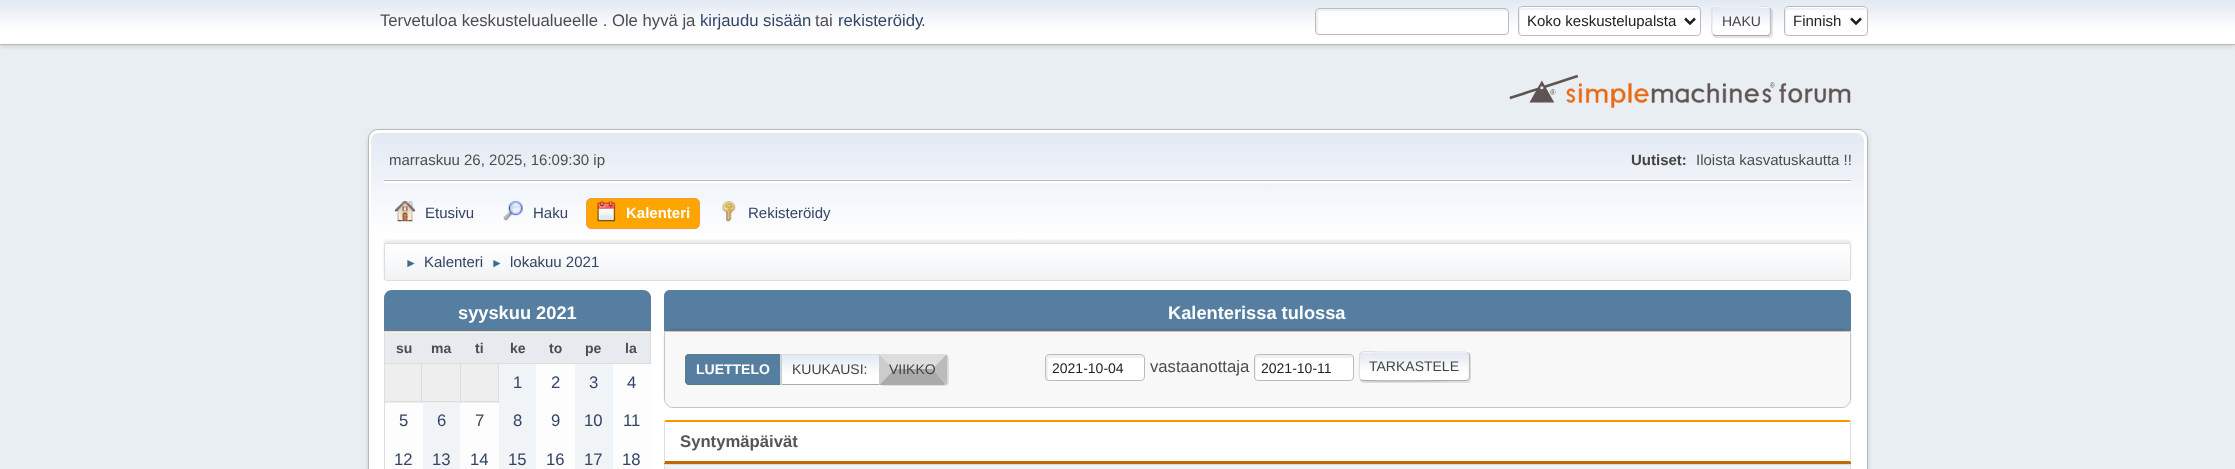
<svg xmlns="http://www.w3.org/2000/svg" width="2235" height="469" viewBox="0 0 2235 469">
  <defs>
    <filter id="blur1" x="-50%" y="-200%" width="200%" height="500%"><feGaussianBlur stdDeviation="2.5"/></filter>
    <linearGradient id="g1" gradientUnits="userSpaceOnUse" x1="1118" y1="0" x2="1118" y2="44"><stop offset="0" stop-color="#e2e9f3"/><stop offset="0.7" stop-color="#ffffff"/></linearGradient>
    <filter id="blur2" x="-50%" y="-200%" width="200%" height="500%"><feGaussianBlur stdDeviation="0.5"/></filter>
    <clipPath id="clip1"><rect x="1711" y="6" width="60" height="30" rx="4"/></clipPath>
    <linearGradient id="g2" gradientUnits="userSpaceOnUse" x1="1741" y1="-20" x2="1741" y2="7.5"><stop offset="0" stop-color="#e2e9f3"/><stop offset="0.7" stop-color="#ffffff"/></linearGradient>
    <linearGradient id="g3" gradientUnits="userSpaceOnUse" x1="1741" y1="7.5" x2="1741" y2="35"><stop offset="0" stop-color="#e2e9f3"/><stop offset="0.7" stop-color="#ffffff"/></linearGradient>
    <filter id="blur3" x="-50%" y="-200%" width="200%" height="500%"><feGaussianBlur stdDeviation="2"/></filter>
    <linearGradient id="g4" gradientUnits="userSpaceOnUse" x1="1118" y1="132" x2="1118" y2="284"><stop offset="0" stop-color="#e2e9f3"/><stop offset="0.7" stop-color="#ffffff"/></linearGradient>
    <filter id="blur4" x="-50%" y="-200%" width="200%" height="500%"><feGaussianBlur stdDeviation="1"/></filter>
    <clipPath id="clip2"><rect x="384" y="243" width="1467" height="38" rx="2.5"/></clipPath>
    <linearGradient id="g5" gradientUnits="userSpaceOnUse" x1="1118" y1="244" x2="1118" y2="280"><stop offset="0" stop-color="#ffffff"/><stop offset="0.95" stop-color="#f1f3f5"/></linearGradient>
    <linearGradient id="g6" gradientUnits="userSpaceOnUse" x1="831" y1="355" x2="831" y2="384"><stop offset="0" stop-color="#e2e9f3"/><stop offset="0.7" stop-color="#ffffff"/></linearGradient>
    <clipPath id="clip3"><path d="M879 354H944C946 354 948 356 948 358V381C948 383 946 385 944 385H879Z"/></clipPath>
    <linearGradient id="g7" gradientUnits="userSpaceOnUse" x1="913" y1="355" x2="913" y2="384"><stop offset="0" stop-color="#e2e9f3"/><stop offset="0.7" stop-color="#ffffff"/></linearGradient>
    <linearGradient id="g8" gradientUnits="userSpaceOnUse" x1="913" y1="384" x2="913" y2="413"><stop offset="0" stop-color="#e2e9f3"/><stop offset="0.7" stop-color="#ffffff"/></linearGradient>
    <clipPath id="clip4"><rect x="1359" y="351" width="111" height="30" rx="4"/></clipPath>
    <linearGradient id="g9" gradientUnits="userSpaceOnUse" x1="1414" y1="353" x2="1414" y2="380"><stop offset="0" stop-color="#e2e9f3"/><stop offset="0.7" stop-color="#ffffff"/></linearGradient>
  </defs>
  <rect width="100%" height="100%" fill="#e9eef2"/>
  <rect x="0" y="1" width="2235" height="45" fill="#000000" fill-opacity="0.16" filter="url(#blur1)"/>
  <rect x="0" y="0" width="2235" height="44" fill="url(#g1)"/>
  <rect x="0" y="44" width="2235" height="1" fill="#bbbbbb"/>
  <text x="380" y="26" font-family="Liberation Sans" font-size="16.7" fill="#4d4d4d">Tervetuloa keskustelualueelle . Ole hyvä ja</text>
  <text x="700" y="26" font-family="Liberation Sans" font-size="16.7" fill="#334466">kirjaudu sisään</text>
  <text x="815" y="26" font-family="Liberation Sans" font-size="16.7" fill="#4d4d4d">tai</text>
  <text x="838" y="26" font-family="Liberation Sans" font-size="16.7" fill="#334466">rekisteröidy</text>
  <text x="921" y="26" font-family="Liberation Sans" font-size="16.7" fill="#4d4d4d">.</text>
  <rect x="1315" y="8" width="194" height="27" rx="4" fill="#ffffff"/>
  <path d="M1320 11H1506L1508 12C1508 10 1507 9 1506 9H1318C1317 9 1316 10 1316 12V32C1316 33 1317 34 1318 34V14C1318 12 1319 11 1320 11Z" fill="#ecf1f8"/>
  <rect x="1315.5" y="8.5" width="193" height="26" rx="3.5" fill="none" stroke="#bbbbbb"/>
  <rect x="1518" y="6" width="183" height="30" rx="4" fill="#ffffff"/>
  <path d="M1522 10H1700C1700 9 1699 8 1698 8H1522C1520 8 1519 9 1519 10V32C1519 33 1519 34 1520 35V12C1520 11 1521 10 1522 10Z" fill="#ecf1f8"/>
  <rect x="1518.5" y="6.5" width="182" height="29" rx="3.5" fill="none" stroke="#bbbbbb"/>
  <path d="M1685 18.5L1690 23.5L1695 18.5" fill="none" stroke="#222222" stroke-width="2.5"/>
  <text x="1527" y="26" font-family="Liberation Sans" font-size="15" fill="#222222">Koko keskustelupalsta</text>
  <rect x="1713" y="8" width="60" height="30" rx="4" fill="#000000" fill-opacity="0.1" filter="url(#blur2)"/>
  <g clip-path="url(#clip1)">
    <rect x="1711" y="6" width="60" height="2" fill="url(#g2)"/>
    <rect x="1711" y="8" width="60" height="27" fill="url(#g3)"/>
  </g>
  <path d="M1769.5 8C1770.5 8.5 1770.5 9 1770.5 10V32.5C1770.5 33.5 1770.5 34 1769.5 34.5" fill="none" stroke="#bbbbbb" stroke-width="1.2"/>
  <path d="M1769.5 34.5L1768 35.5H1714.5L1713 34.5" fill="none" stroke="#aaaaaa" stroke-width="1.2"/>
  <path d="M1713 34.5C1710.5 32.5 1712 24 1712 21C1712 6 1709 7 1724 7H1759C1759 7 1767.5 5.5 1769.5 8" fill="none" stroke="#dddddd" stroke-width="1.2"/>
  <text x="1722" y="26" font-family="Liberation Sans" font-size="14" fill="#444444">HAKU</text>
  <rect x="1784" y="6" width="84" height="30" rx="4" fill="#ffffff"/>
  <path d="M1789 10H1866C1866 9 1865 8 1864 8H1788C1786 8 1785 9 1785 10V32C1785 33 1785 34 1786 35V12C1786 11 1787 10 1789 10Z" fill="#ecf1f8"/>
  <rect x="1784.5" y="6.5" width="83" height="29" rx="3.5" fill="none" stroke="#bbbbbb"/>
  <path d="M1851 18.5L1856 23.5L1861 18.5" fill="none" stroke="#222222" stroke-width="2.5"/>
  <text x="1793" y="26" font-family="Liberation Sans" font-size="15" fill="#222222">Finnish</text>
  <image x="1509" y="74" width="342" height="34" href="img1.png"/>
  <rect x="368" y="131" width="1500" height="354" rx="10" fill="#000000" fill-opacity="0.14" filter="url(#blur3)"/>
  <rect x="368.5" y="129.5" width="1499" height="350" rx="9.5" fill="#ffffff" stroke="#b8b8b8"/>
  <path d="M379 133H1856C1860.5 133 1864 136.5 1864 141V284H371V141C371 136.5 374.5 133 379 133Z" fill="url(#g4)"/>
  <text x="389" y="165" font-family="Liberation Sans" font-size="15" fill="#4d4d4d">marraskuu 26, 2025, 16:09:30 ip</text>
  <text x="1631" y="165" font-family="Liberation Sans" font-size="15" font-weight="bold" fill="#444444">Uutiset:</text>
  <text x="1696" y="165" font-family="Liberation Sans" font-size="15" fill="#4d4d4d">Iloista kasvatuskautta !!</text>
  <rect x="384" y="181" width="1467" height="2" fill="#ffffff"/>
  <rect x="384" y="180" width="1467" height="1" fill="#bbbbbb"/>
  <image x="395" y="201" width="20" height="21" href="img2.png"/>
  <text x="425" y="218" font-family="Liberation Sans" font-size="15" fill="#334466">Etusivu</text>
  <image x="503" y="201" width="20" height="20" href="img3.png"/>
  <text x="533" y="218" font-family="Liberation Sans" font-size="15" fill="#334466">Haku</text>
  <rect x="586.5" y="198.5" width="113" height="30" rx="4.5" fill="#ffa500" stroke="#f49a3a"/>
  <image x="597" y="201" width="19" height="21" href="img4.png"/>
  <text x="626" y="218" font-family="Liberation Sans" font-size="15" font-weight="bold" fill="#ffffff">Kalenteri</text>
  <image x="722" y="201" width="14" height="21" href="img5.png"/>
  <text x="748" y="218" font-family="Liberation Sans" font-size="15" fill="#334466">Rekisteröidy</text>
  <rect x="384" y="240" width="1467" height="39" rx="2.5" fill="#000000" fill-opacity="0.08" filter="url(#blur4)"/>
  <g clip-path="url(#clip2)">
    <rect x="384" y="244" width="1467" height="36" fill="url(#g5)"/>
  </g>
  <rect x="384.5" y="243.5" width="1466" height="37" rx="2" fill="none" stroke="#dddddd"/>
  <text x="405" y="267" font-family="Liberation Sans" font-size="12" fill="#3f6b8c">►</text>
  <text x="424" y="267" font-family="Liberation Sans" font-size="15" fill="#334466">Kalenteri</text>
  <text x="491" y="267" font-family="Liberation Sans" font-size="12" fill="#3f6b8c">►</text>
  <text x="510" y="267" font-family="Liberation Sans" font-size="15" fill="#334466">lokakuu 2021</text>
  <path d="M392 290H643C647.5 290 651 293.5 651 298V331H384V298C384 293.5 387.5 290 392 290Z" fill="#557ea0"/>
  <rect x="384" y="330" width="267" height="1" fill="#777777"/>
  <text x="458" y="319" font-family="Liberation Sans" font-size="18.25" font-weight="bold" fill="#ffffff">syyskuu 2021</text>
  <rect x="385" y="332" width="265" height="137" fill="#f0f4f7"/>
  <rect x="384" y="331" width="267" height="1" fill="#dddddd"/>
  <rect x="650" y="331" width="1" height="32" fill="#dddddd"/>
  <rect x="384" y="331" width="1" height="138" fill="#dddddd"/>
  <rect x="385" y="333" width="265" height="30" fill="#e7eaef"/>
  <text x="396" y="353" font-family="Liberation Sans" font-size="14" font-weight="bold" fill="#4d4d4d">su</text>
  <text x="431" y="353" font-family="Liberation Sans" font-size="14" font-weight="bold" fill="#4d4d4d">ma</text>
  <text x="475" y="353" font-family="Liberation Sans" font-size="14" font-weight="bold" fill="#4d4d4d">ti</text>
  <text x="510" y="353" font-family="Liberation Sans" font-size="14" font-weight="bold" fill="#4d4d4d">ke</text>
  <text x="549" y="353" font-family="Liberation Sans" font-size="14" font-weight="bold" fill="#4d4d4d">to</text>
  <text x="585" y="353" font-family="Liberation Sans" font-size="14" font-weight="bold" fill="#4d4d4d">pe</text>
  <text x="625" y="353" font-family="Liberation Sans" font-size="14" font-weight="bold" fill="#4d4d4d">la</text>
  <rect x="384" y="363" width="267" height="1" fill="#dddddd"/>
  <rect x="385" y="364" width="75" height="39" fill="#eeeeee"/>
  <rect x="461" y="364" width="37" height="39" fill="#eeeeee"/>
  <rect x="384" y="401" width="115" height="1" fill="#dddddd"/>
  <rect x="421" y="363" width="1" height="40" fill="#dddddd"/>
  <rect x="460" y="363" width="1" height="40" fill="#dddddd"/>
  <rect x="498" y="363" width="1" height="40" fill="#dddddd"/>
  <text x="513" y="388" font-family="Liberation Sans" font-size="16.7" fill="#334466">1</text>
  <rect x="536" y="364" width="39" height="105" fill="#fdfdfd"/>
  <text x="551" y="388" font-family="Liberation Sans" font-size="16.7" fill="#334466">2</text>
  <text x="589" y="388" font-family="Liberation Sans" font-size="16.7" fill="#334466">3</text>
  <rect x="613" y="364" width="37" height="105" fill="#fdfdfd"/>
  <text x="627" y="388" font-family="Liberation Sans" font-size="16.7" fill="#334466">4</text>
  <rect x="385" y="403" width="38" height="66" fill="#fdfdfd"/>
  <text x="399" y="426" font-family="Liberation Sans" font-size="16.7" fill="#334466">5</text>
  <text x="437" y="426" font-family="Liberation Sans" font-size="16.7" fill="#334466">6</text>
  <rect x="460" y="403" width="39" height="66" fill="#fdfdfd"/>
  <text x="475" y="426" font-family="Liberation Sans" font-size="16.7" fill="#334466">7</text>
  <text x="513" y="426" font-family="Liberation Sans" font-size="16.7" fill="#334466">8</text>
  <text x="551" y="426" font-family="Liberation Sans" font-size="16.7" fill="#334466">9</text>
  <text x="584" y="426" font-family="Liberation Sans" font-size="16.7" fill="#334466">10</text>
  <text x="623" y="426" font-family="Liberation Sans" font-size="16.7" fill="#334466">11</text>
  <text x="394" y="465" font-family="Liberation Sans" font-size="16.7" fill="#334466">12</text>
  <text x="432" y="465" font-family="Liberation Sans" font-size="16.7" fill="#334466">13</text>
  <text x="470" y="465" font-family="Liberation Sans" font-size="16.7" fill="#334466">14</text>
  <text x="508" y="465" font-family="Liberation Sans" font-size="16.7" fill="#334466">15</text>
  <text x="546" y="465" font-family="Liberation Sans" font-size="16.7" fill="#334466">16</text>
  <text x="584" y="465" font-family="Liberation Sans" font-size="16.7" fill="#334466">17</text>
  <text x="622" y="465" font-family="Liberation Sans" font-size="16.7" fill="#334466">18</text>
  <path d="M670 290H1845C1848.5 290 1851 292.5 1851 296V331H664V296C664 292.5 666.5 290 670 290Z" fill="#557ea0"/>
  <rect x="664" y="330" width="1187" height="1" fill="#777777"/>
  <text x="1168" y="319" font-family="Liberation Sans" font-size="18.25" font-weight="bold" fill="#ffffff">Kalenterissa tulossa</text>
  <rect x="664" y="329" width="1187" height="76" rx="9" fill="#000000" fill-opacity="0.1" filter="url(#blur4)"/>
  <path d="M664.5 331.5H1850.5V399C1850.5 403.5 1846.5 407.5 1842 407.5H673C668.5 407.5 664.5 403.5 664.5 399Z" fill="#f8f8f8" stroke="#c5c5c5"/>
  <path d="M687 354C685.5 354.5 684 356 684 358V381C684 383 686 385 688 385H689C686.5 385 685 383.5 685 381V357.5C685 356 686 354.5 687 354Z" fill="#fdfdfd"/>
  <path d="M689 354H781V385H689C687 385 685 383 685 381V358C685 356 687 354 689 354Z" fill="#557ea0"/>
  <path d="M689 354H781V385H689C687 385 685 383 685 381V358C685 355 687 354 689 354ZM689 355H781V384H689C687 384 686 383 686 381V358C686 356 687 355 689 355Z" fill="#558080" fill-rule="evenodd"/>
  <text x="696" y="374" font-family="Liberation Sans" font-size="14" font-weight="bold" fill="#ffffff">LUETTELO</text>
  <rect x="780" y="354" width="1" height="31" fill="#ffffff" fill-opacity="0.7"/>
  <rect x="782" y="355" width="97" height="29" fill="url(#g6)"/>
  <rect x="781" y="354" width="98" height="1" fill="#dddddd"/>
  <rect x="781" y="384" width="98" height="1" fill="#aaaaaa"/>
  <rect x="781" y="354" width="1" height="31" fill="#cccccc"/>
  <text x="792" y="374" font-family="Liberation Sans" font-size="14" fill="#444444">KUUKAUSI:</text>
  <rect x="880" y="355" width="69" height="31" rx="4" fill="#000000" fill-opacity="0.1" filter="url(#blur2)"/>
  <g clip-path="url(#clip3)">
    <rect x="880" y="355" width="68" height="29" fill="url(#g7)"/>
    <rect x="879" y="384" width="69" height="1" fill="url(#g8)"/>
  </g>
  <path d="M879 354L894 369H932L947 355L944 354Z" fill="#dddddd"/>
  <path d="M947.5 383L946.5 384L932 369.5L946.5 354.5L947.5 356Z" fill="#bbbbbb"/>
  <path d="M879 385L894 369H932L946 384L944 385Z" fill="#aaaaaa"/>
  <path d="M879 354V385L894.5 369.5Z" fill="#cccccc"/>
  <text x="889" y="374" font-family="Liberation Sans" font-size="14" fill="#444444">VIIKKO</text>
  <rect x="1045" y="354" width="100" height="27" rx="4" fill="#ffffff"/>
  <path d="M1050 358H1142H1144C1144 356 1143 355 1142 355H1048C1047 355 1046 356 1046 358V378C1046 379 1047 380 1048 380V360C1048 359 1049 358 1050 358Z" fill="#ecf1f8"/>
  <rect x="1045.5" y="354.5" width="99" height="26" rx="3.5" fill="none" stroke="#bbbbbb"/>
  <text x="1052" y="373" font-family="Liberation Sans" font-size="14" fill="#222222">2021-10-04</text>
  <text x="1150" y="372" font-family="Liberation Sans" font-size="16.7" fill="#4d4d4d">vastaanottaja</text>
  <rect x="1254" y="354" width="100" height="27" rx="4" fill="#ffffff"/>
  <path d="M1259 358H1351H1353C1353 351 1337 355 1335 355H1273C1253 355 1255 351 1255 368C1255 370 1254 378 1256 380V360C1256 359 1257 358 1259 358Z" fill="#ecf1f8"/>
  <rect x="1254.5" y="354.5" width="99" height="26" rx="3.5" fill="none" stroke="#bbbbbb"/>
  <text x="1261" y="373" font-family="Liberation Sans" font-size="14" fill="#222222">2021-10-11</text>
  <rect x="1360" y="353" width="111" height="30" rx="4" fill="#000000" fill-opacity="0.1" filter="url(#blur2)"/>
  <rect x="1359" y="351" width="111" height="30" rx="4" fill="#ffffff"/>
  <g clip-path="url(#clip4)">
    <rect x="1359" y="353" width="111" height="27" fill="url(#g9)"/>
  </g>
  <path d="M1468.5 353C1469 353.5 1469.5 354 1469.5 355V377.5C1469.5 378.5 1469 379 1468.5 379.5" fill="none" stroke="#bbbbbb" stroke-width="1.2"/>
  <path d="M1468.5 379.5L1466 380.5H1449C1439.5 380.5 1363 381.5 1361 380L1360.5 379.5" fill="none" stroke="#aaaaaa" stroke-width="1.2"/>
  <path d="M1360.5 379.5C1358 377.5 1359.5 369 1359.5 366C1359.5 347.5 1357.5 352 1380 352H1466L1468.5 353" fill="none" stroke="#dddddd" stroke-width="1.2"/>
  <text x="1369" y="371" font-family="Liberation Sans" font-size="14" fill="#444444">TARKASTELE</text>
  <path d="M666 420L664 421L665 422H1850L1851 421L1849 420Z" fill="#ff9400"/>
  <path d="M1851 421V463L1850 461V422Z" fill="#dddddd"/>
  <path d="M664 464L665 461H1850L1851 463V464Z" fill="#bf6900"/>
  <path d="M664 421V463L665 461V422Z" fill="#dddddd"/>
  <text x="680" y="447" font-family="Liberation Sans" font-size="16.7" font-weight="bold" fill="#555555">Syntymäpäivät</text>
  <rect x="664.5" y="464.5" width="1186" height="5" fill="#f0f4f7" stroke="#dddddd"/>
</svg>
